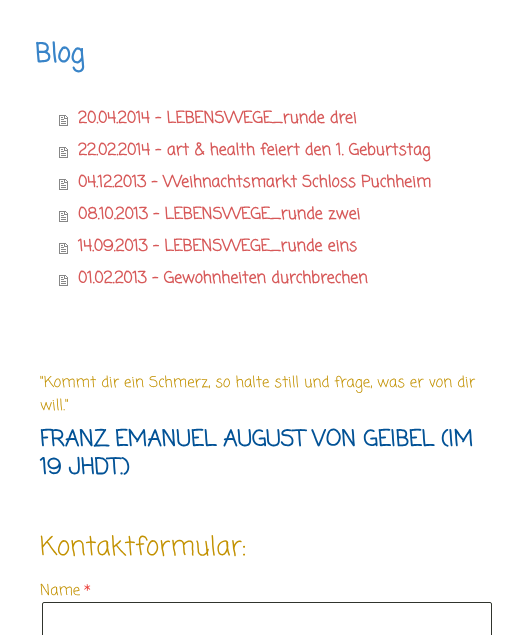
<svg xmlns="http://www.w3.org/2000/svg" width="532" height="635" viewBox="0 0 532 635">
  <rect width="100%" height="100%" fill="#ffffff"/>
  <text x="35" y="62" font-family="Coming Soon" font-size="26" font-weight="bold" fill="#3984c8">Blog</text>
  <image x="59" y="115" width="9" height="11" href="img1.png"/>
  <text x="78" y="123" font-family="Coming Soon" font-size="16" font-weight="bold" fill="#d75959">20.04.2014 - LEBENSWEGE_runde drei</text>
  <image x="59" y="147" width="9" height="11" href="img1.png"/>
  <text x="78" y="155" font-family="Coming Soon" font-size="16" font-weight="bold" fill="#d75959">22.02.2014 - art &amp; health feiert den 1. Geburtstag</text>
  <image x="59" y="179" width="9" height="11" href="img1.png"/>
  <text x="78" y="187" font-family="Coming Soon" font-size="16" font-weight="bold" fill="#d75959">04.12.2013 - Weihnachtsmarkt Schloss Puchheim</text>
  <image x="59" y="211" width="9" height="11" href="img1.png"/>
  <text x="78" y="219" font-family="Coming Soon" font-size="16" font-weight="bold" fill="#d75959">08.10.2013 - LEBENSWEGE_runde zwei</text>
  <image x="59" y="243" width="9" height="11" href="img1.png"/>
  <text x="78" y="251" font-family="Coming Soon" font-size="16" font-weight="bold" fill="#d75959">14.09.2013 - LEBENSWEGE_runde eins</text>
  <image x="59" y="275" width="9" height="11" href="img1.png"/>
  <text x="78" y="283" font-family="Coming Soon" font-size="16" font-weight="bold" fill="#d75959">01.02.2013 - Gewohnheiten durchbrechen</text>
  <text x="40" y="387" font-family="Coming Soon" font-size="15" fill="#c29100">"Kommt dir ein Schmerz, so halte still und frage, was er von dir</text>
  <text x="40" y="410" font-family="Coming Soon" font-size="15" fill="#c29100">will."</text>
  <text x="40" y="446" font-family="Coming Soon" font-size="22" font-weight="bold" fill="#025296">FRANZ EMANUEL AUGUST VON GEIBEL (IM</text>
  <text x="40" y="474" font-family="Coming Soon" font-size="22" font-weight="bold" fill="#025296">19 JHDT.)</text>
  <text x="40" y="555" font-family="Coming Soon" font-size="26" fill="#c29100">Kontaktformular:</text>
  <text x="40" y="595" font-family="Coming Soon" font-size="15" fill="#c29100">Name</text>
  <text x="84" y="595" font-family="Coming Soon" font-size="15" fill="#eb433e">*</text>
  <rect x="42.5" y="602.5" width="449" height="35" rx="1.5" fill="none" stroke="#30342d"/>
</svg>
